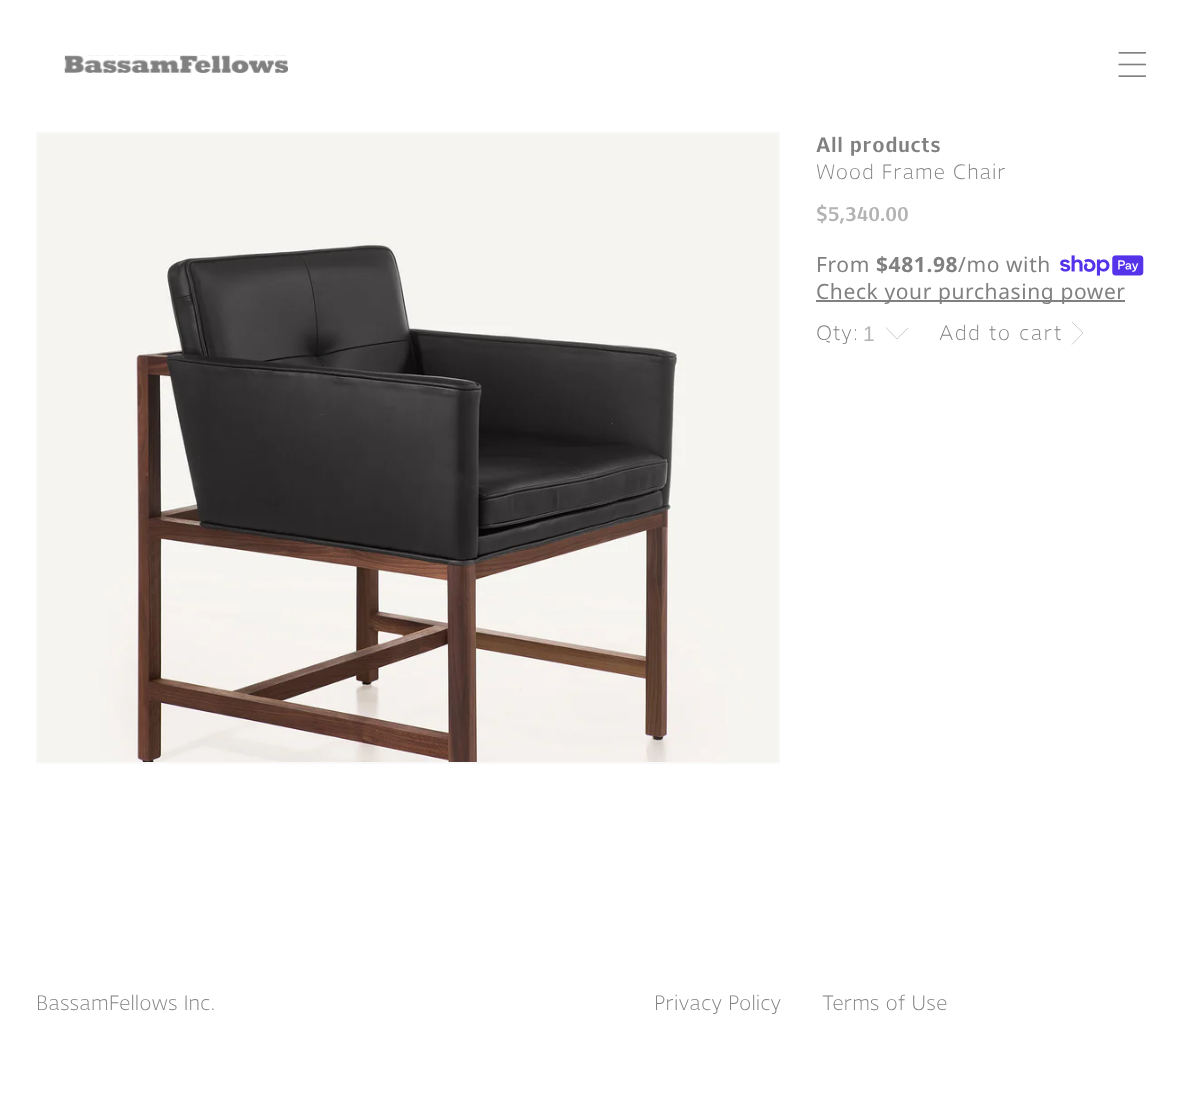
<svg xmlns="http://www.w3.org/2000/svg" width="1199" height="1106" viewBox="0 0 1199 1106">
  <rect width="100%" height="100%" fill="#ffffff"/>
  <image x="64" y="55" width="224" height="18" href="img1.png"/>
  <image x="1118" y="52" width="29" height="25" href="img2.png"/>
  <rect x="37" y="133" width="742" height="630" fill="none" stroke="#f9f9f9" stroke-width="2"/>
  <image x="37" y="133" width="742" height="629" href="img3.png"/>
  <text x="816" y="152" font-family="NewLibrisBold" font-size="21" font-weight="bold" letter-spacing="0.9" fill="#808080">All products</text>
  <text x="816" y="179" font-family="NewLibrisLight" font-size="21" font-weight="300" letter-spacing="0.9" fill="#808080">Wood Frame Chair</text>
  <text x="816" y="221" font-family="NewLibrisBold" font-size="21" font-weight="bold" fill="#b3b3b3">$5,340.00</text>
  <text x="816" y="272" font-family="Noto Sans" font-size="21" letter-spacing="0.6" fill="#808080">From</text>
  <text x="876" y="272" font-family="Noto Sans" font-size="21" font-weight="bold" letter-spacing="0.6" fill="#808080">$481.98</text>
  <text x="958" y="272" font-family="Noto Sans" font-size="21" letter-spacing="0.6" fill="#808080">/mo with</text>
  <image x="1060" y="255" width="84" height="21" href="img4.png"/>
  <rect x="816" y="300" width="309" height="2" fill="#808080"/>
  <text x="816" y="299" font-family="Noto Sans" font-size="21" letter-spacing="0.6" fill="#808080">Check your purchasing power</text>
  <text x="816" y="340" font-family="NewLibrisLight" font-size="21" font-weight="300" letter-spacing="0.6" fill="#808080">Qty:</text>
  <path d="M908 328L897 339L886 327.5" fill="none" stroke="#808080" stroke-width="0.4"/>
  <text x="863" y="341" font-family="Liberation Sans" font-size="21" fill="#b3b3b3">1</text>
  <text x="939" y="340" font-family="NewLibrisLight" font-size="21" font-weight="300" letter-spacing="1.5" fill="#808080">Add to cart</text>
  <path d="M1072 322L1083 333L1072 344.5" fill="none" stroke="#808080" stroke-width="0.4"/>
  <text x="36" y="1010" font-family="NewLibrisLight" font-size="21" font-weight="300" fill="#808080">BassamFellows Inc.</text>
  <text x="654" y="1010" font-family="NewLibrisLight" font-size="21" font-weight="300" fill="#808080">Privacy Policy</text>
  <text x="822" y="1010" font-family="NewLibrisLight" font-size="21" font-weight="300" fill="#808080">Terms of Use</text>
</svg>
